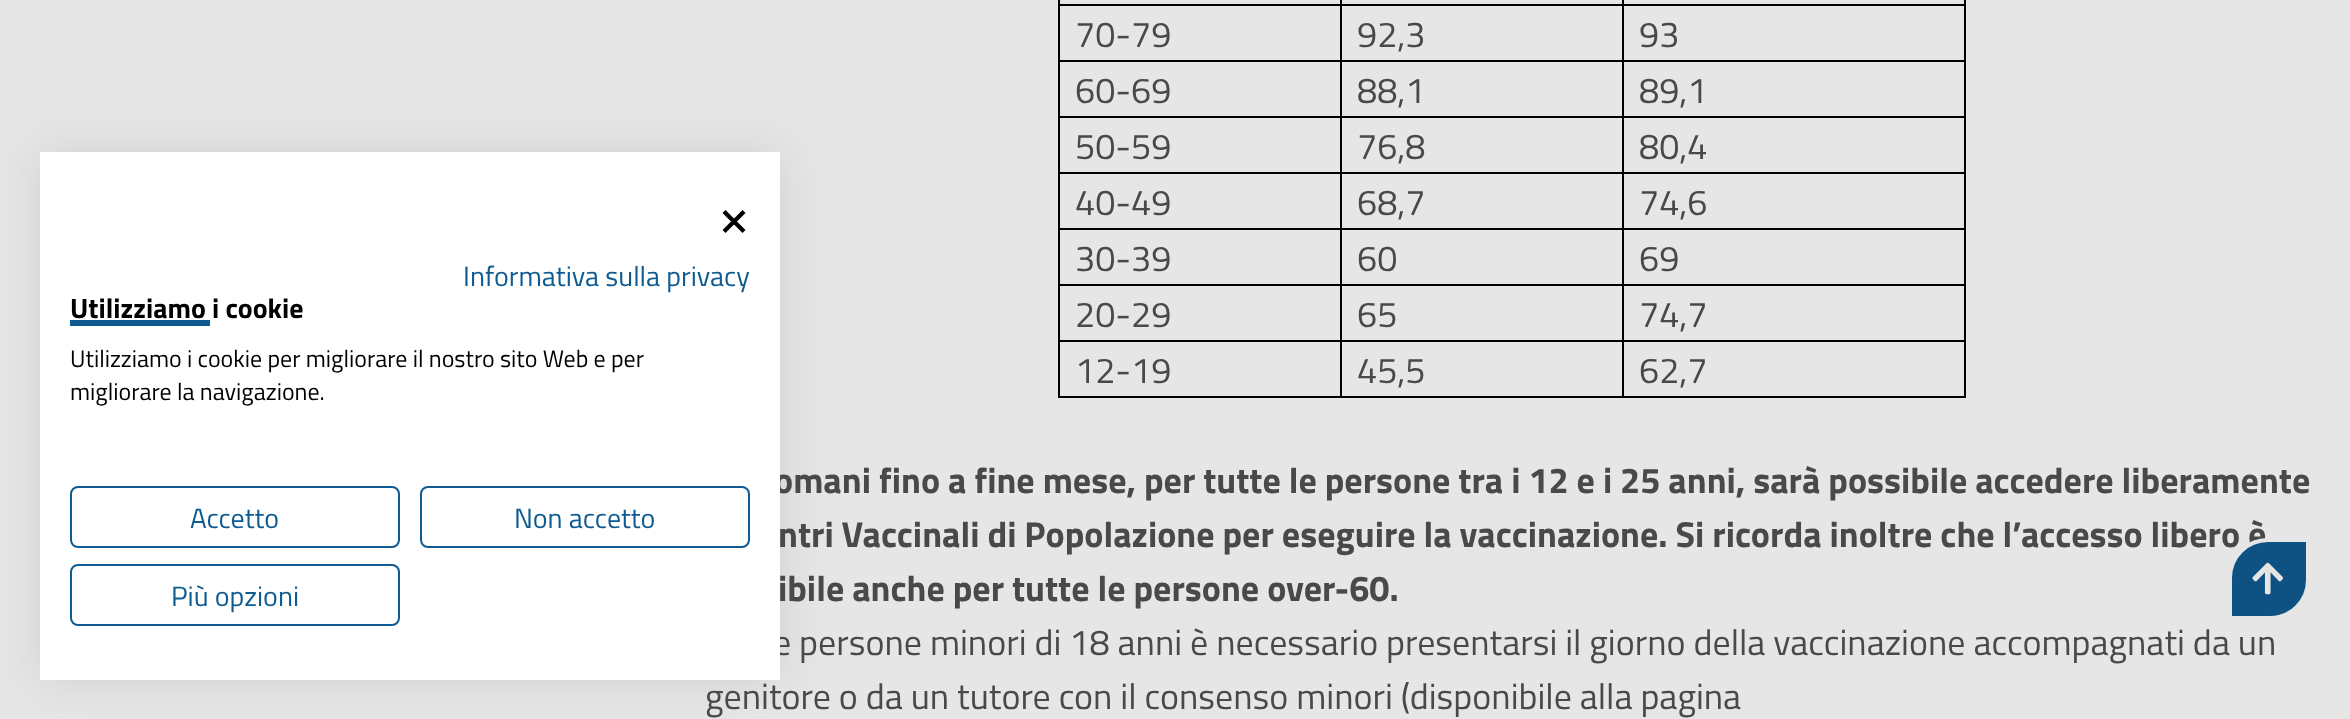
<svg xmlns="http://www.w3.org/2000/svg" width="2350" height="719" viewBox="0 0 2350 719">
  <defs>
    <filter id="blur1" x="-50%" y="-200%" width="200%" height="500%"><feGaussianBlur stdDeviation="24"/></filter>
  </defs>
  <rect width="100%" height="100%" fill="#e6e6e6"/>
  <rect x="40" y="152" width="740" height="528" fill="#000000" fill-opacity="0.1" filter="url(#blur1)"/>
  <text x="774" y="493" font-family="Titillium Web" font-size="36" font-weight="bold" fill="#494949">omani fino a fine mese, per tutte le persone tra i 12 e i 25 anni, sarà possibile accedere liberamente</text>
  <text x="773" y="655" font-family="Titillium Web" font-size="36" fill="#494949">e persone minori di 18 anni è necessario presentarsi il giorno della vaccinazione accompagnati da un</text>
  <rect x="40" y="152" width="740" height="528" fill="#ffffff"/>
  <path d="M742.5 210L745.5 213L725.5 233L722.5 230Z" fill="#000000"/>
  <path d="M722.5 213L725.5 210L745.5 230L742.5 233Z" fill="#000000"/>
  <text x="463" y="286" font-family="Titillium Web" font-size="28" fill="#0e5b92">Informativa sulla privacy</text>
  <text x="70" y="318" font-family="Titillium Web" font-size="28" font-weight="bold" fill="#000000">Utilizziamo i cookie</text>
  <rect x="70" y="320" width="140" height="6" fill="#0e5b92"/>
  <text x="70" y="367" font-family="Titillium Web" font-size="24" fill="#000000">Utilizziamo i cookie per migliorare il nostro sito Web e per</text>
  <text x="70" y="400" font-family="Titillium Web" font-size="24" fill="#000000">migliorare la navigazione.</text>
  <rect x="71" y="487" width="328" height="60" rx="7" fill="none" stroke="#0e5b92" stroke-width="2"/>
  <text x="190" y="528" font-family="Titillium Web" font-size="28" fill="#0e5b92">Accetto</text>
  <rect x="421" y="487" width="328" height="60" rx="7" fill="none" stroke="#0e5b92" stroke-width="2"/>
  <text x="514" y="528" font-family="Titillium Web" font-size="28" fill="#0e5b92">Non accetto</text>
  <rect x="71" y="565" width="328" height="60" rx="7" fill="none" stroke="#0e5b92" stroke-width="2"/>
  <text x="171" y="606" font-family="Titillium Web" font-size="28" fill="#0e5b92">Più opzioni</text>
  <rect x="1964" y="0" width="2" height="398" fill="#000000"/>
  <rect x="1622" y="396" width="344" height="2" fill="#000000"/>
  <rect x="1622" y="340" width="2" height="58" fill="#000000"/>
  <rect x="1622" y="340" width="344" height="2" fill="#000000"/>
  <rect x="1622" y="284" width="2" height="58" fill="#000000"/>
  <rect x="1622" y="284" width="344" height="2" fill="#000000"/>
  <rect x="1622" y="228" width="2" height="58" fill="#000000"/>
  <rect x="1622" y="228" width="344" height="2" fill="#000000"/>
  <rect x="1622" y="172" width="2" height="58" fill="#000000"/>
  <rect x="1622" y="172" width="344" height="2" fill="#000000"/>
  <rect x="1622" y="116" width="2" height="58" fill="#000000"/>
  <rect x="1622" y="116" width="344" height="2" fill="#000000"/>
  <rect x="1622" y="60" width="2" height="58" fill="#000000"/>
  <rect x="1622" y="60" width="344" height="2" fill="#000000"/>
  <rect x="1622" y="4" width="2" height="58" fill="#000000"/>
  <rect x="1622" y="4" width="344" height="2" fill="#000000"/>
  <rect x="1622" y="0" width="2" height="6" fill="#000000"/>
  <rect x="1340" y="396" width="284" height="2" fill="#000000"/>
  <rect x="1340" y="340" width="2" height="58" fill="#000000"/>
  <rect x="1340" y="340" width="284" height="2" fill="#000000"/>
  <rect x="1340" y="284" width="2" height="58" fill="#000000"/>
  <rect x="1340" y="284" width="284" height="2" fill="#000000"/>
  <rect x="1340" y="228" width="2" height="58" fill="#000000"/>
  <rect x="1340" y="228" width="284" height="2" fill="#000000"/>
  <rect x="1340" y="172" width="2" height="58" fill="#000000"/>
  <rect x="1340" y="172" width="284" height="2" fill="#000000"/>
  <rect x="1340" y="116" width="2" height="58" fill="#000000"/>
  <rect x="1340" y="116" width="284" height="2" fill="#000000"/>
  <rect x="1340" y="60" width="2" height="58" fill="#000000"/>
  <rect x="1340" y="60" width="284" height="2" fill="#000000"/>
  <rect x="1340" y="4" width="2" height="58" fill="#000000"/>
  <rect x="1340" y="4" width="284" height="2" fill="#000000"/>
  <rect x="1340" y="0" width="2" height="6" fill="#000000"/>
  <rect x="1058" y="396" width="284" height="2" fill="#000000"/>
  <rect x="1058" y="340" width="2" height="58" fill="#000000"/>
  <rect x="1058" y="340" width="284" height="2" fill="#000000"/>
  <rect x="1058" y="284" width="2" height="58" fill="#000000"/>
  <rect x="1058" y="284" width="284" height="2" fill="#000000"/>
  <rect x="1058" y="228" width="2" height="58" fill="#000000"/>
  <rect x="1058" y="228" width="284" height="2" fill="#000000"/>
  <rect x="1058" y="172" width="2" height="58" fill="#000000"/>
  <rect x="1058" y="172" width="284" height="2" fill="#000000"/>
  <rect x="1058" y="116" width="2" height="58" fill="#000000"/>
  <rect x="1058" y="116" width="284" height="2" fill="#000000"/>
  <rect x="1058" y="60" width="2" height="58" fill="#000000"/>
  <rect x="1058" y="60" width="284" height="2" fill="#000000"/>
  <rect x="1058" y="4" width="2" height="58" fill="#000000"/>
  <rect x="1058" y="4" width="284" height="2" fill="#000000"/>
  <rect x="1058" y="0" width="2" height="6" fill="#000000"/>
  <text x="1075" y="47" font-family="Titillium Web" font-size="36" fill="#494949">70-79</text>
  <text x="1357" y="47" font-family="Titillium Web" font-size="36" fill="#494949">92,3</text>
  <text x="1639" y="47" font-family="Titillium Web" font-size="36" fill="#494949">93</text>
  <text x="1075" y="103" font-family="Titillium Web" font-size="36" fill="#494949">60-69</text>
  <text x="1357" y="103" font-family="Titillium Web" font-size="36" fill="#494949">88,1</text>
  <text x="1639" y="103" font-family="Titillium Web" font-size="36" fill="#494949">89,1</text>
  <text x="1075" y="159" font-family="Titillium Web" font-size="36" fill="#494949">50-59</text>
  <text x="1357" y="159" font-family="Titillium Web" font-size="36" fill="#494949">76,8</text>
  <text x="1639" y="159" font-family="Titillium Web" font-size="36" fill="#494949">80,4</text>
  <text x="1075" y="215" font-family="Titillium Web" font-size="36" fill="#494949">40-49</text>
  <text x="1357" y="215" font-family="Titillium Web" font-size="36" fill="#494949">68,7</text>
  <text x="1639" y="215" font-family="Titillium Web" font-size="36" fill="#494949">74,6</text>
  <text x="1075" y="271" font-family="Titillium Web" font-size="36" fill="#494949">30-39</text>
  <text x="1357" y="271" font-family="Titillium Web" font-size="36" fill="#494949">60</text>
  <text x="1639" y="271" font-family="Titillium Web" font-size="36" fill="#494949">69</text>
  <text x="1075" y="327" font-family="Titillium Web" font-size="36" fill="#494949">20-29</text>
  <text x="1357" y="327" font-family="Titillium Web" font-size="36" fill="#494949">65</text>
  <text x="1639" y="327" font-family="Titillium Web" font-size="36" fill="#494949">74,7</text>
  <text x="1075" y="383" font-family="Titillium Web" font-size="36" fill="#494949">12-19</text>
  <text x="1357" y="383" font-family="Titillium Web" font-size="36" fill="#494949">45,5</text>
  <text x="1639" y="383" font-family="Titillium Web" font-size="36" fill="#494949">62,7</text>
  <text x="778" y="547" font-family="Titillium Web" font-size="36" font-weight="bold" fill="#494949">ntri Vaccinali di Popolazione per eseguire la vaccinazione. Si ricorda inoltre che l’accesso libero è</text>
  <text x="778" y="601" font-family="Titillium Web" font-size="36" font-weight="bold" fill="#494949">ibile anche per tutte le persone over-60.</text>
  <text x="705" y="709" font-family="Titillium Web" font-size="36" fill="#494949">genitore o da un tutore con il consenso minori (disponibile alla pagina</text>
  <path d="M2268 540H2308V580C2308 601 2291 618 2270 618H2230V578C2230 557 2247 540 2268 540Z" fill="#0d5283" stroke="#e6e6e6" stroke-width="4"/>
  <image x="2252" y="562" width="31" height="33" href="img1.png"/>
</svg>
